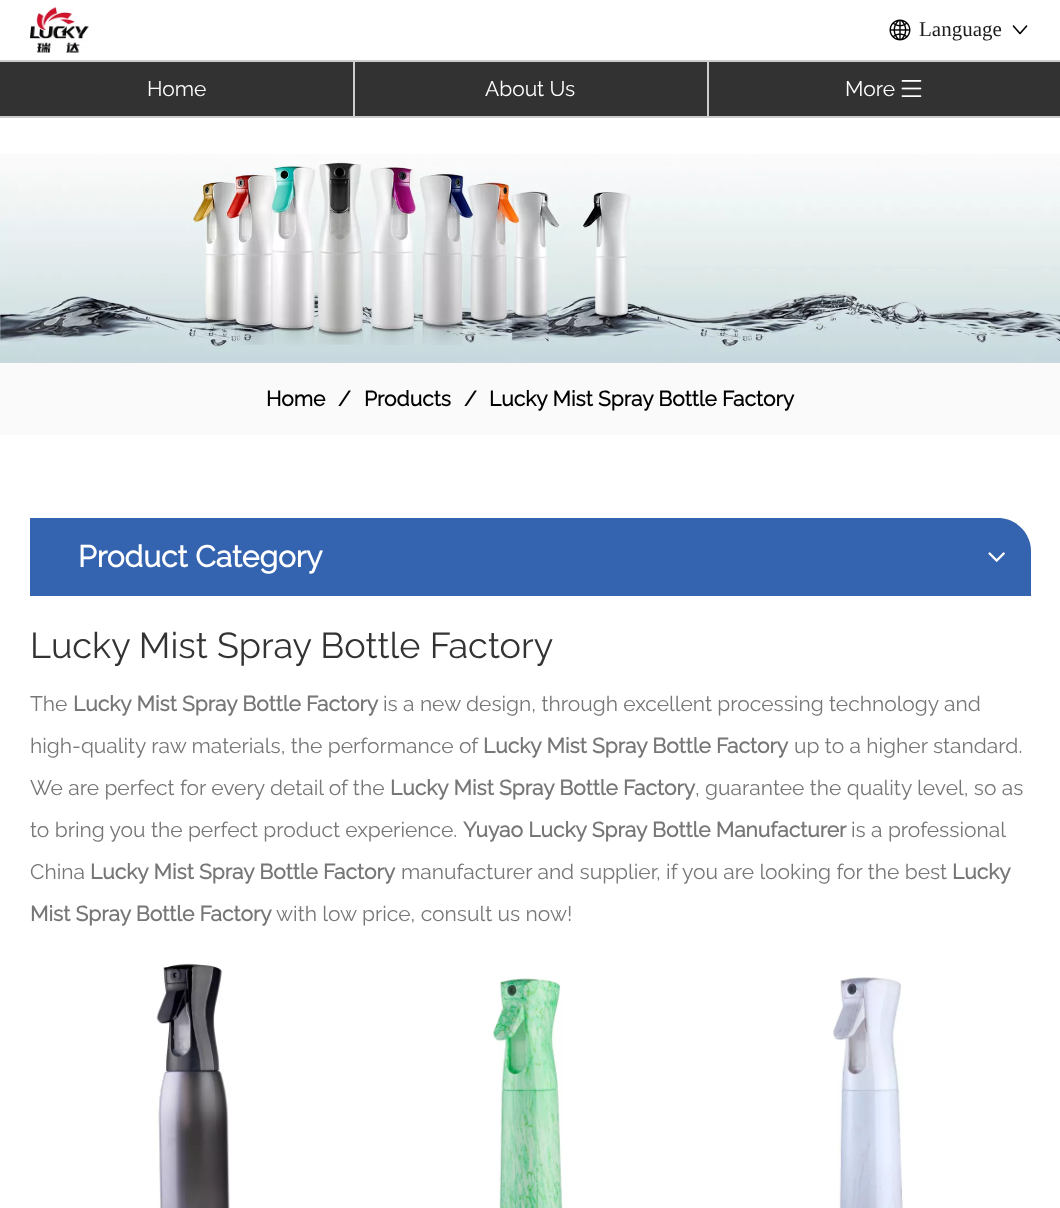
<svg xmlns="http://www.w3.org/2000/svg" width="1060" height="1208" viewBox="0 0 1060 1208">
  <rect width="100%" height="100%" fill="#ffffff"/>
  <image x="30" y="7" width="59" height="46" href="img1.png"/>
  <image x="889" y="19" width="22" height="22" href="img2.png"/>
  <text x="919" y="36" font-family="Liberation Serif" font-size="21" fill="#1c1c1c">Language</text>
  <image x="1012" y="25" width="16" height="10" href="img3.png"/>
  <rect x="0" y="62" width="1060" height="54" fill="#323232"/>
  <rect x="0" y="60" width="1060" height="2" fill="#cccccc"/>
  <rect x="0" y="116" width="1060" height="2" fill="#cccccc"/>
  <rect x="353" y="62" width="2" height="54" fill="#cccccc"/>
  <text x="147" y="96" font-family="Raleway" font-size="21" font-weight="100" fill="#ffffff">Home</text>
  <rect x="707" y="62" width="2" height="54" fill="#cccccc"/>
  <text x="485" y="96" font-family="Raleway" font-size="21" font-weight="100" fill="#ffffff">About Us</text>
  <text x="845" y="96" font-family="Raleway" font-size="21" font-weight="100" fill="#ffffff">More</text>
  <image x="901" y="80" width="21" height="17" href="img4.png"/>
  <image x="0" y="154" width="1060" height="209" href="img5.png"/>
  <rect x="0" y="363" width="1060" height="72" fill="#f9faf9"/>
  <text x="266" y="406" font-family="Raleway" font-size="21" font-weight="bold" fill="#000000">Home</text>
  <text x="338" y="406" font-family="Raleway" font-size="21" font-weight="bold" fill="#000000">/</text>
  <text x="364" y="406" font-family="Raleway" font-size="21" font-weight="bold" fill="#000000">Products</text>
  <text x="464" y="406" font-family="Raleway" font-size="21" font-weight="bold" fill="#000000">/</text>
  <text x="489" y="406" font-family="Raleway" font-size="21" font-weight="bold" fill="#000000">Lucky Mist Spray Bottle Factory</text>
  <path d="M30 518H998C1016 518 1031 533 1031 551V596H30Z" fill="#3463af"/>
  <text x="78" y="567" font-family="Raleway" font-size="30" font-weight="bold" fill="#ffffff">Product Category</text>
  <image x="988" y="552" width="17" height="10" href="img6.png"/>
  <text x="30" y="658" font-family="Raleway" font-size="36" font-weight="100" fill="#333333">Lucky Mist Spray Bottle Factory</text>
  <text x="30" y="711" font-family="Raleway" font-size="21" font-weight="100" fill="#777777">The</text>
  <text x="73" y="711" font-family="Raleway" font-size="21" font-weight="bold" fill="#777777">Lucky Mist Spray Bottle Factory</text>
  <text x="383" y="711" font-family="Raleway" font-size="21" font-weight="100" fill="#777777">is a new design, through excellent processing technology and</text>
  <text x="30" y="753" font-family="Raleway" font-size="21" font-weight="100" fill="#777777">high-quality raw materials, the performance of</text>
  <text x="483" y="753" font-family="Raleway" font-size="21" font-weight="bold" fill="#777777">Lucky Mist Spray Bottle Factory</text>
  <text x="794" y="753" font-family="Raleway" font-size="21" font-weight="100" fill="#777777">up to a higher standard.</text>
  <text x="30" y="795" font-family="Raleway" font-size="21" font-weight="100" fill="#777777">We are perfect for every detail of the</text>
  <text x="390" y="795" font-family="Raleway" font-size="21" font-weight="bold" fill="#777777">Lucky Mist Spray Bottle Factory</text>
  <text x="695" y="795" font-family="Raleway" font-size="21" font-weight="100" fill="#777777">, guarantee the quality level, so as</text>
  <text x="30" y="837" font-family="Raleway" font-size="21" font-weight="100" fill="#777777">to bring you the perfect product experience.</text>
  <text x="463" y="837" font-family="Raleway" font-size="21" font-weight="bold" fill="#777777">Yuyao Lucky Spray Bottle Manufacturer</text>
  <text x="851" y="837" font-family="Raleway" font-size="21" font-weight="100" fill="#777777">is a professional</text>
  <text x="30" y="879" font-family="Raleway" font-size="21" font-weight="100" fill="#777777">China</text>
  <text x="90" y="879" font-family="Raleway" font-size="21" font-weight="bold" fill="#777777">Lucky Mist Spray Bottle Factory</text>
  <text x="401" y="879" font-family="Raleway" font-size="21" font-weight="100" fill="#777777">manufacturer and supplier, if you are looking for the best</text>
  <text x="952" y="879" font-family="Raleway" font-size="21" font-weight="bold" fill="#777777">Lucky</text>
  <text x="30" y="921" font-family="Raleway" font-size="21" font-weight="bold" fill="#777777">Mist Spray Bottle Factory</text>
  <text x="276" y="921" font-family="Raleway" font-size="21" font-weight="100" fill="#777777">with low price, consult us now!</text>
  <image x="156" y="963" width="74" height="245" href="img7.png"/>
  <image x="492" y="977" width="71" height="231" href="img8.png"/>
  <image x="833" y="977" width="70" height="231" href="img9.png"/>
</svg>
